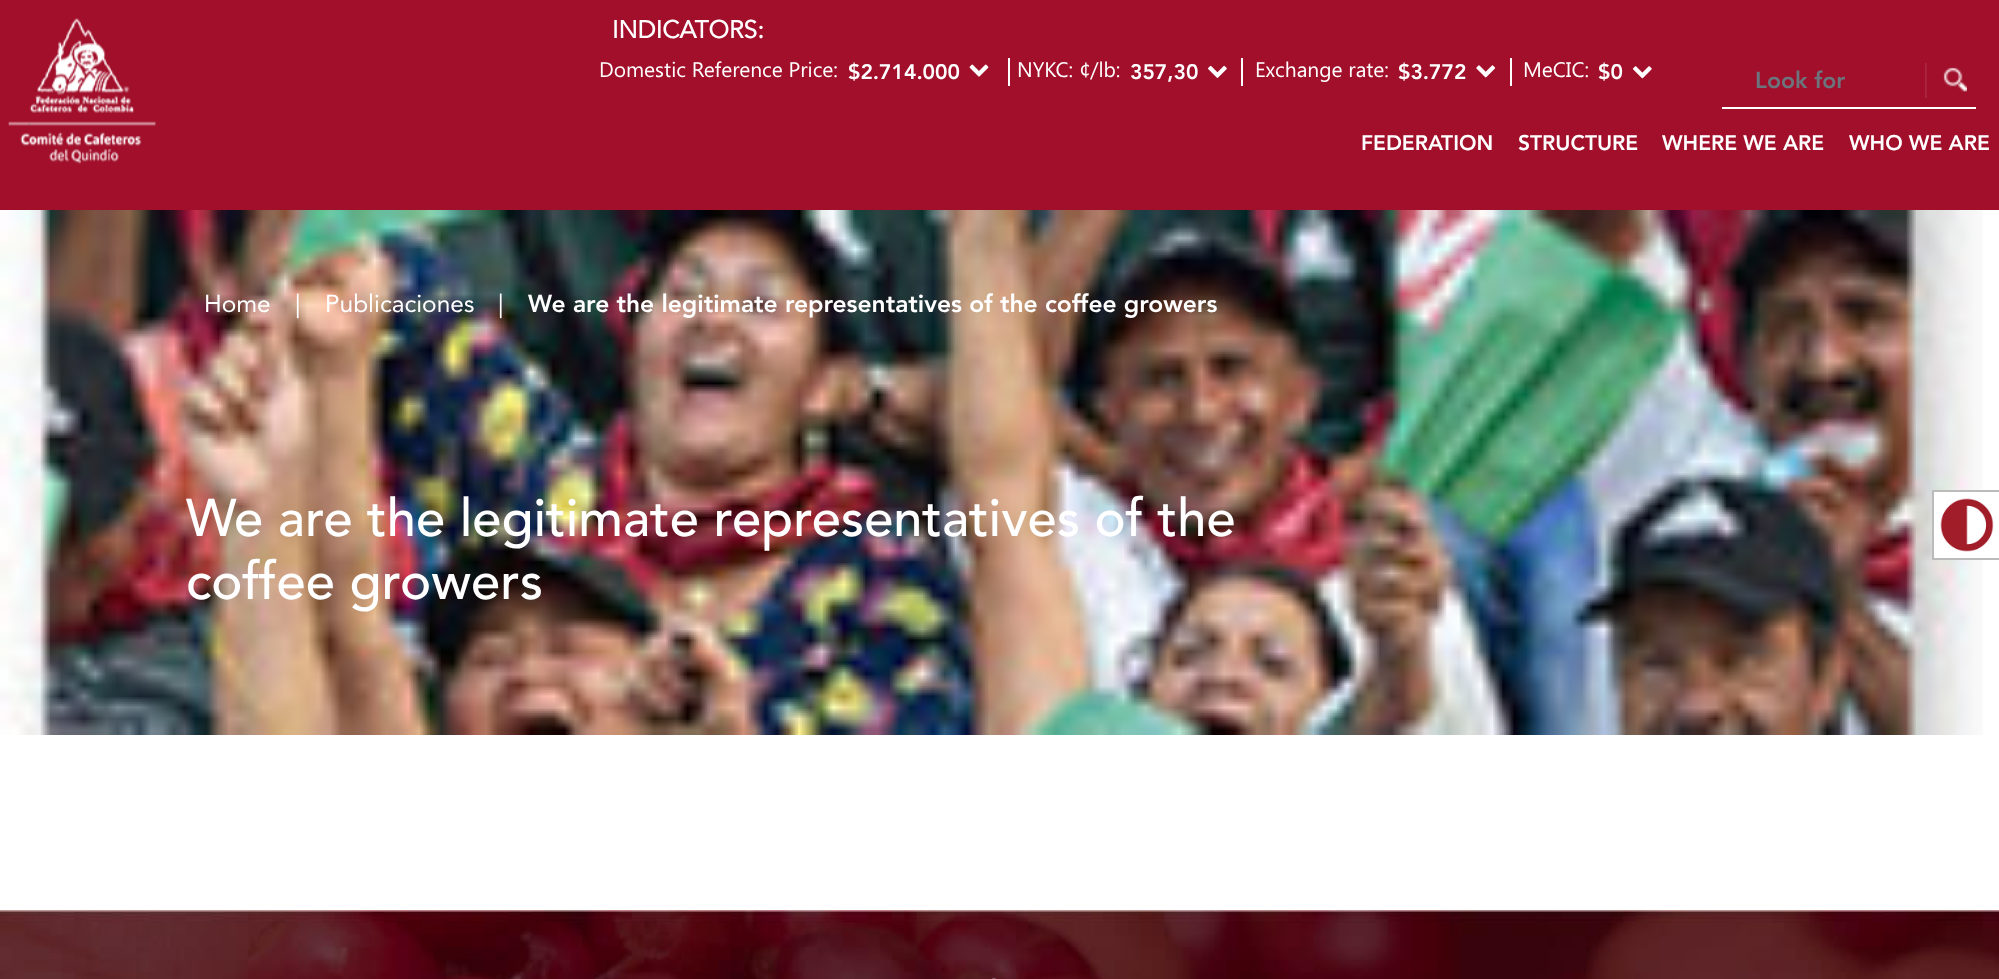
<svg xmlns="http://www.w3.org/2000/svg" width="1999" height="979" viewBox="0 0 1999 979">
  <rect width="100%" height="100%" fill="#ffffff"/>
  <rect x="0" y="0" width="1999" height="210" fill="#a10f2a"/>
  <image x="8" y="18" width="148" height="146" href="img1.png"/>
  <text x="612" y="38" font-family="Avenir" font-size="24.5" font-weight="bold" fill="#ffffff">INDICATORS:</text>
  <text x="599" y="77" font-family="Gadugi" font-size="21" fill="#ffffff">Domestic Reference Price:</text>
  <text x="848" y="79" font-family="Avenir" font-size="21" font-weight="900" fill="#ffffff">$2.714.000</text>
  <image x="969" y="64" width="20" height="13" href="img2.png"/>
  <rect x="1008" y="58" width="2" height="28" fill="#ffffff"/>
  <text x="1017" y="77" font-family="Gadugi" font-size="21" fill="#ffffff">NYKC: ¢/lb:</text>
  <text x="1130" y="79" font-family="Avenir" font-size="21" font-weight="900" fill="#ffffff">357,30</text>
  <image x="1208" y="65" width="19" height="13" href="img3.png"/>
  <rect x="1241" y="58" width="2" height="28" fill="#ffffff"/>
  <text x="1255" y="77" font-family="Gadugi" font-size="21" fill="#ffffff">Exchange rate:</text>
  <text x="1398" y="79" font-family="Avenir" font-size="21" font-weight="900" fill="#ffffff">$3.772</text>
  <image x="1476" y="65" width="20" height="13" href="img4.png"/>
  <rect x="1510" y="58" width="2" height="28" fill="#ffffff"/>
  <text x="1523" y="77" font-family="Gadugi" font-size="21" fill="#ffffff">MeCIC:</text>
  <text x="1598" y="79" font-family="Avenir" font-size="21" font-weight="900" fill="#ffffff">$0</text>
  <image x="1632" y="66" width="20" height="13" href="img5.png"/>
  <image x="1925" y="63" width="42" height="35" href="img6.png"/>
  <rect x="1722" y="107" width="254" height="2" fill="#ffffff"/>
  <text x="1755" y="88" font-family="Avenir" font-size="23" font-weight="900" fill="#6c757d">Look for</text>
  <text x="1361" y="150" font-family="Avenir" font-size="21" font-weight="900" fill="#ffffff">FEDERATION</text>
  <text x="1518" y="150" font-family="Avenir" font-size="21" font-weight="900" fill="#ffffff">STRUCTURE</text>
  <text x="1662" y="150" font-family="Avenir" font-size="21" font-weight="900" fill="#ffffff">WHERE WE ARE</text>
  <text x="1849" y="150" font-family="Avenir" font-size="21" font-weight="900" fill="#ffffff">WHO WE ARE</text>
  <image x="0" y="210" width="1983" height="525" href="img7.png"/>
  <text x="204" y="312" font-family="Avenir" font-size="24.5" fill="#ffffff">Home</text>
  <text x="295" y="312" font-family="Avenir" font-size="24.5" fill="#ffffff">|</text>
  <text x="325" y="312" font-family="Avenir" font-size="24.5" fill="#ffffff">Publicaciones</text>
  <text x="498" y="312" font-family="Avenir" font-size="24.5" fill="#ffffff">|</text>
  <text x="528" y="312" font-family="Avenir" font-size="24.5" font-weight="900" fill="#ffffff">We are the legitimate representatives of the coffee growers</text>
  <text x="186" y="536" font-family="Avenir" font-size="52.5" font-weight="500" fill="#ffffff">We are the legitimate representatives of the</text>
  <text x="186" y="599" font-family="Avenir" font-size="52.5" font-weight="500" fill="#ffffff">coffee growers</text>
  <rect x="1934" y="492" width="49" height="66" fill="#ffffff"/>
  <rect x="1933" y="491" width="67" height="68" fill="none" stroke="#bbbbbb" stroke-width="2"/>
  <image x="1940" y="498" width="54" height="54" href="img8.png"/>
  <image x="0" y="910" width="1999" height="69" href="img9.png"/>
  <image x="992" y="977" width="5" height="2" href="img10.png"/>
</svg>
